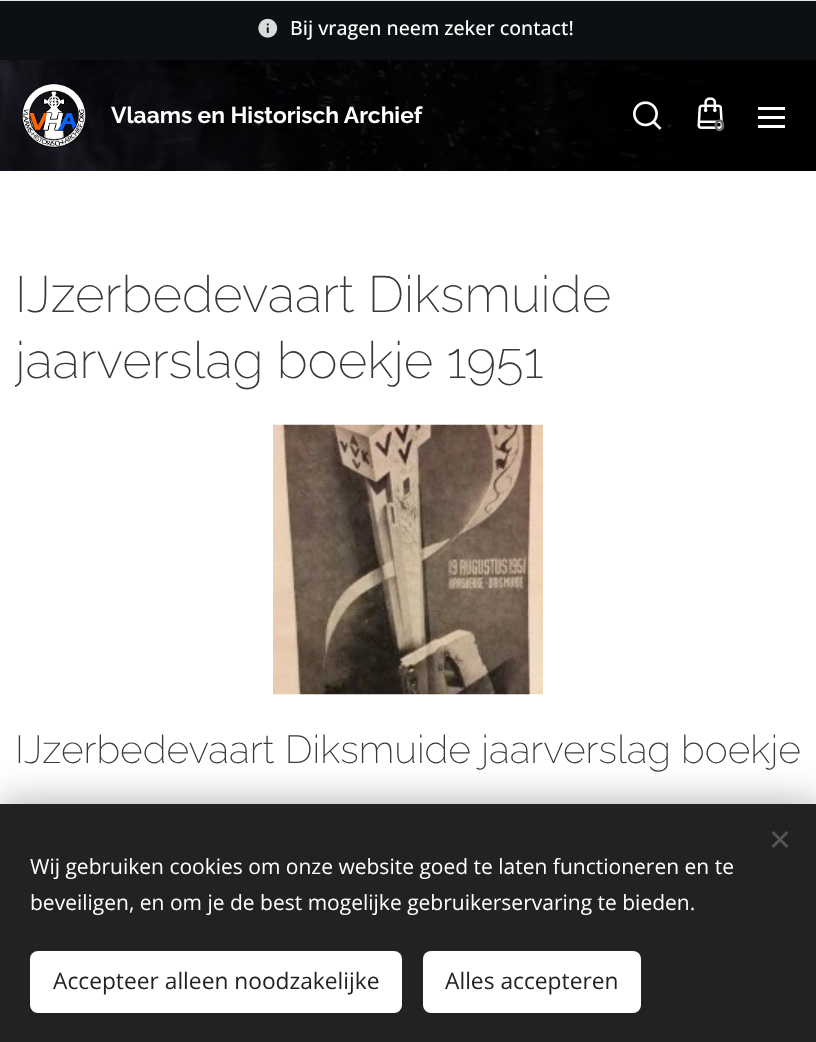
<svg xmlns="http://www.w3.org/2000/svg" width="816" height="1042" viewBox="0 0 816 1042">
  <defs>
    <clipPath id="clip1"><rect x="15" y="246" width="786" height="162"/></clipPath>
    <filter id="blur1" x="-50%" y="-200%" width="200%" height="500%"><feGaussianBlur stdDeviation="19"/></filter>
  </defs>
  <rect width="100%" height="100%" fill="#ffffff"/>
  <rect x="0" y="1" width="816" height="58" fill="#0c1012"/>
  <rect x="0" y="59" width="816" height="1" fill="#0a0e0f"/>
  <image x="258" y="18" width="20" height="20" href="img1.png"/>
  <text x="290" y="35" font-family="Open Sans" font-size="19.5" font-weight="500" fill="#ffffff">Bij vragen neem zeker contact!</text>
  <image x="0" y="60" width="816" height="111" href="img2.png"/>
  <image x="21" y="83" width="65" height="65" href="img3.png"/>
  <text x="111" y="123" font-family="Raleway" font-size="22.75" font-weight="bold" fill="#ffffff">Vlaams en Historisch Archief</text>
  <rect x="0" y="0" width="816" height="1" fill="#e8e8e8"/>
  <image x="633" y="101" width="29" height="29" href="img4.png"/>
  <image x="697" y="97" width="26" height="32" href="img5.png"/>
  <text x="714" y="131" font-family="Montserrat" font-size="16" font-weight="bold" fill="#686869">0</text>
  <rect x="758" y="116" width="27" height="3" fill="#ffffff"/>
  <rect x="758" y="107" width="27" height="3" fill="#ffffff"/>
  <rect x="758" y="125" width="27" height="3" fill="#ffffff"/>
  <text x="15" y="312" font-family="Raleway" font-size="51" font-weight="200" fill="#393939">IJzerbedevaart Diksmuide</text>
  <g clip-path="url(#clip1)">
    <text x="15" y="378" font-family="Raleway" font-size="51" font-weight="200" fill="#393939">jaarverslag boekje 1951</text>
  </g>
  <image x="273" y="424" width="270" height="271" href="img6.png"/>
  <text x="15" y="763" font-family="Raleway" font-size="39" font-weight="200" fill="#393939">IJzerbedevaart Diksmuide jaarverslag boekje</text>
  <rect x="0" y="804" width="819" height="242" fill="#000000" fill-opacity="0.33" filter="url(#blur1)"/>
  <rect x="0" y="804" width="816" height="238" fill="#222222"/>
  <path d="M771.5 846L786.5 831L788.5 833L773.5 848Z" fill="#555555"/>
  <path d="M773.5 831L788.5 846L786.5 848L771.5 833Z" fill="#555555"/>
  <text x="30" y="874" font-family="Open Sans" font-size="21" fill="#ffffff">Wij gebruiken cookies om onze website goed te laten functioneren en te</text>
  <text x="30" y="910" font-family="Open Sans" font-size="21" fill="#ffffff">beveiligen, en om je de best mogelijke gebruikerservaring te bieden.</text>
  <rect x="30" y="951" width="372" height="62" rx="8" fill="#ffffff"/>
  <text x="53" y="989" font-family="Open Sans" font-size="22.75" fill="#222222">Accepteer alleen noodzakelijke</text>
  <rect x="423" y="951" width="218" height="62" rx="8" fill="#ffffff"/>
  <text x="445" y="989" font-family="Open Sans" font-size="22.75" fill="#222222">Alles accepteren</text>
</svg>
